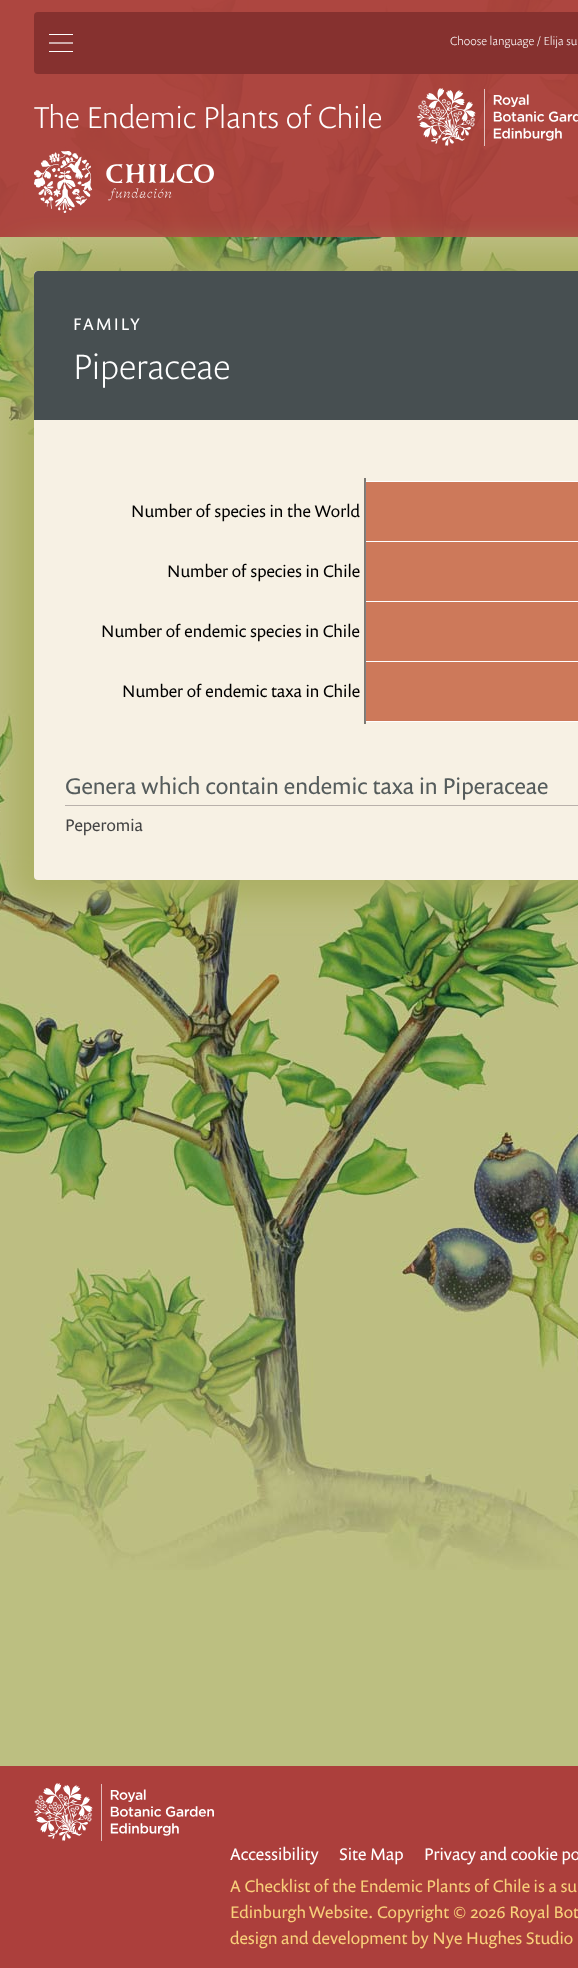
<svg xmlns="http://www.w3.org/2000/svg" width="578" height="1968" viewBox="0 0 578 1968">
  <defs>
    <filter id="blur1" x="-50%" y="-200%" width="200%" height="500%"><feGaussianBlur stdDeviation="15"/></filter>
  </defs>
  <rect width="100%" height="100%" fill="#bcbf81"/>
  <image x="0" y="0" width="578" height="1570" href="img1.png"/>
  <rect x="0" y="0" width="578" height="237" fill="#ac3f3c" fill-opacity="0.95"/>
  <rect x="34" y="12" width="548" height="62" rx="4" fill="#86312f"/>
  <image x="49" y="34" width="24" height="18" href="img2.png"/>
  <text x="450" y="45" font-family="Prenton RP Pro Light" font-size="11.9" font-weight="300" fill="#ffffff">Choose language / Elija su</text>
  <text x="34" y="128" font-family="Prenton RP Pro Light" font-size="30.6" font-weight="300" fill="#ffffff">The Endemic Plants of Chile</text>
  <image x="417" y="88" width="161" height="58" href="img3.png"/>
  <image x="34" y="151" width="180" height="62" href="img4.png"/>
  <rect x="14" y="251" width="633" height="649" rx="24" fill="#aaae5f" fill-opacity="0.9" filter="url(#blur1)"/>
  <rect x="34" y="271" width="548" height="609" rx="4" fill="#f7f1e4"/>
  <path d="M38 271H578C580 271 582 273 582 275V420H34V275C34 273 36 271 38 271Z" fill="#474f51"/>
  <text x="73" y="330" font-family="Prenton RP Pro" font-size="17" letter-spacing="2" fill="#ffffff">FAMILY</text>
  <text x="73" y="379" font-family="Prenton RP Pro Light" font-size="35.5" font-weight="300" fill="#ffffff">Piperaceae</text>
  <text x="131" y="517" font-family="Prenton RP Pro" font-size="17" fill="#000000">Number of species in the World</text>
  <rect x="365.5" y="481.5" width="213" height="60" fill="#cd795a" stroke="#ffffff"/>
  <text x="167" y="577" font-family="Prenton RP Pro" font-size="17" fill="#000000">Number of species in Chile</text>
  <rect x="365.5" y="541.5" width="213" height="60" fill="#cd795a" stroke="#ffffff"/>
  <rect x="365.5" y="601.5" width="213" height="60" fill="#cd795a" stroke="#ffffff"/>
  <rect x="365.5" y="661.5" width="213" height="60" fill="#cd795a" stroke="#ffffff"/>
  <path d="M365 478V724" fill="none" stroke="#000000"/>
  <text x="101" y="637" font-family="Prenton RP Pro" font-size="17" fill="#000000">Number of endemic species in Chile</text>
  <text x="122" y="697" font-family="Prenton RP Pro" font-size="17" fill="#000000">Number of endemic taxa in Chile</text>
  <rect x="65" y="805" width="513" height="1" fill="#b9b1ab"/>
  <text x="65" y="794" font-family="Prenton RP Pro" font-size="22.95" fill="#555c5c">Genera which contain endemic taxa in Piperaceae</text>
  <text x="65" y="831" font-family="Prenton RP Pro" font-size="17" fill="#444444">Peperomia</text>
  <rect x="0" y="1766" width="578" height="202" fill="#ac3f3c"/>
  <image x="34" y="1783" width="180" height="58" href="img5.png"/>
  <text x="230" y="1860" font-family="Prenton RP Pro" font-size="17" fill="#ffffff">Accessibility</text>
  <text x="339" y="1860" font-family="Prenton RP Pro" font-size="17" fill="#ffffff">Site Map</text>
  <text x="424" y="1860" font-family="Prenton RP Pro" font-size="17" fill="#ffffff">Privacy and cookie po</text>
  <text x="230" y="1892" font-family="Prenton RP Pro" font-size="17" fill="#f8cf7a">A Checklist of the Endemic Plants of Chile is a su</text>
  <text x="230" y="1918" word-spacing="-1" font-family="Prenton RP Pro" font-size="17" fill="#f8cf7a">Edinburgh Website.</text>
  <text x="377" y="1918" font-family="Prenton RP Pro" font-size="17" fill="#f8cf7a">Copyright © 2026 Royal Bot</text>
  <text x="230" y="1944" font-family="Prenton RP Pro" font-size="17" fill="#f8cf7a">design and development by Nye Hughes Studio</text>
</svg>
